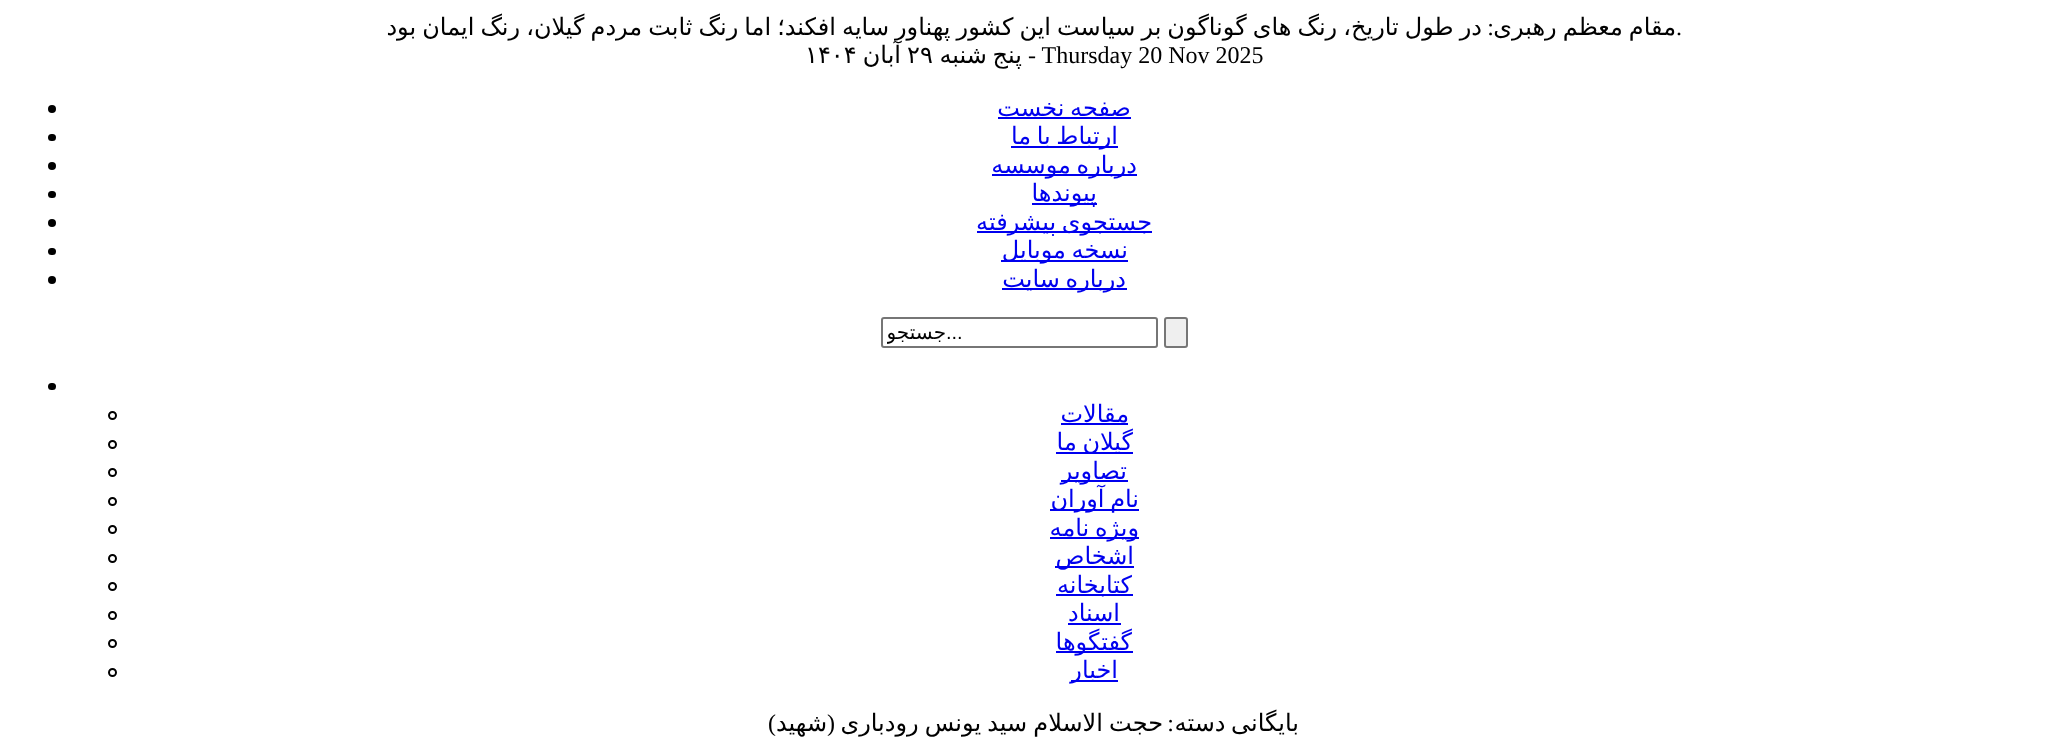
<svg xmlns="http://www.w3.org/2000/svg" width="2068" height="744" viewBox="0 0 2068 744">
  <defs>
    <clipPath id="clip1"><rect x="887" y="321" width="265" height="23"/></clipPath>
  </defs>
  <rect width="100%" height="100%" fill="#ffffff"/>
  <text x="1676" y="35" word-spacing="-1.6" font-family="DejaVu Sans" font-size="24" direction="rtl" fill="#000000">مقام معظم رهبری</text>
  <text x="1482" y="35" word-spacing="-1.6" font-family="DejaVu Sans" font-size="24" direction="rtl" fill="#000000">در طول تاریخ، رنگ های گوناگون بر سیاست این کشور پهناور سایه افکند؛ اما رنگ ثابت مردم گیلان، رنگ ایمان بود</text>
  <text x="1676" y="35" font-family="Liberation Serif" font-size="24" fill="#000000">.</text>
  <text x="1494" y="35" font-family="Liberation Serif" font-size="24" direction="rtl" fill="#000000">:</text>
  <text x="1028" y="63" font-family="Liberation Serif" font-size="24" fill="#000000">- Thursday 20 Nov 2025</text>
  <text x="1022" y="63" word-spacing="-2" font-family="DejaVu Sans" font-size="24" direction="rtl" fill="#000000">پنج شنبه</text>
  <text x="907" y="63" font-family="DejaVu Sans" font-size="24" fill="#000000">۲۹</text>
  <text x="901" y="63" font-family="DejaVu Sans" font-size="24" direction="rtl" fill="#000000">آبان</text>
  <text x="805" y="63" font-family="DejaVu Sans" font-size="24" fill="#000000">۱۴۰۴</text>
  <text x="1131" y="116" word-spacing="-2" font-family="DejaVu Sans" font-size="24" direction="rtl" fill="#0000ee">صفحه نخست</text>
  <rect x="998" y="117" width="133" height="2" fill="#0000ee"/>
  <circle cx="52" cy="109" r="4" fill="#000000"/>
  <rect x="1011" y="146" width="107" height="2" fill="#0000ee"/>
  <text x="1118" y="144" word-spacing="-2" font-family="DejaVu Sans" font-size="24" direction="rtl" fill="#0000ee">ارتباط با ما</text>
  <rect x="48" y="134" width="8" height="7" rx="3.5" fill="#000000"/>
  <rect x="992" y="174" width="145" height="2" fill="#0000ee"/>
  <text x="1137" y="173" word-spacing="-2" font-family="DejaVu Sans" font-size="24" direction="rtl" fill="#0000ee">درباره موسسه</text>
  <circle cx="52" cy="166" r="4" fill="#000000"/>
  <rect x="1032" y="203" width="65" height="2" fill="#0000ee"/>
  <text x="1097" y="201" font-family="DejaVu Sans" font-size="24" direction="rtl" fill="#0000ee">پیوندها</text>
  <rect x="48" y="191" width="8" height="7" rx="3.5" fill="#000000"/>
  <rect x="977" y="231" width="175" height="2" fill="#0000ee"/>
  <text x="1152" y="230" word-spacing="-2" font-family="DejaVu Sans" font-size="24" direction="rtl" fill="#0000ee">جستجوی پیشرفته</text>
  <circle cx="52" cy="223" r="4" fill="#000000"/>
  <rect x="1001" y="260" width="127" height="2" fill="#0000ee"/>
  <text x="1128" y="258" word-spacing="-2" font-family="DejaVu Sans" font-size="24" direction="rtl" fill="#0000ee">نسخه موبایل</text>
  <rect x="48" y="248" width="8" height="7" rx="3.5" fill="#000000"/>
  <rect x="1002" y="288" width="125" height="2" fill="#0000ee"/>
  <text x="1126" y="287" word-spacing="-2" font-family="DejaVu Sans" font-size="24" direction="rtl" fill="#0000ee">درباره سایت</text>
  <circle cx="52" cy="280" r="4" fill="#000000"/>
  <rect x="1165" y="318" width="22" height="29" rx="2" fill="#efefef" stroke="#767676" stroke-width="2"/>
  <rect x="882" y="318" width="275" height="29" rx="2" fill="none" stroke="#767676" stroke-width="2"/>
  <text x="946" y="339" font-family="Liberation Sans" font-size="20" fill="#000000">...</text>
  <g clip-path="url(#clip1)">
    <text x="946" y="339" font-family="DejaVu Sans" font-size="20" direction="rtl" fill="#000000">جستجو</text>
  </g>
  <rect x="48" y="383" width="8" height="7" rx="3.5" fill="#000000"/>
  <text x="1129" y="422" font-family="DejaVu Sans" font-size="24" direction="rtl" fill="#0000ee">مقالات</text>
  <rect x="1061" y="423" width="67" height="2" fill="#0000ee"/>
  <circle cx="112.5" cy="415.5" r="3.5" fill="none" stroke="#000000" stroke-width="2"/>
  <rect x="1056" y="452" width="77" height="2" fill="#0000ee"/>
  <text x="1133" y="450" word-spacing="-2" font-family="DejaVu Sans" font-size="24" direction="rtl" fill="#0000ee">گیلان ما</text>
  <circle cx="112.5" cy="444.5" r="3.5" fill="none" stroke="#000000" stroke-width="2"/>
  <rect x="1061" y="480" width="67" height="2" fill="#0000ee"/>
  <text x="1127" y="479" font-family="DejaVu Sans" font-size="24" direction="rtl" fill="#0000ee">تصاویر</text>
  <circle cx="112.5" cy="472.5" r="3.5" fill="none" stroke="#000000" stroke-width="2"/>
  <rect x="1050" y="509" width="89" height="2" fill="#0000ee"/>
  <text x="1139" y="507" word-spacing="-2" font-family="DejaVu Sans" font-size="24" direction="rtl" fill="#0000ee">نام آوران</text>
  <circle cx="112.5" cy="501.5" r="3.5" fill="none" stroke="#000000" stroke-width="2"/>
  <rect x="1050" y="537" width="89" height="2" fill="#0000ee"/>
  <text x="1139" y="536" word-spacing="-2" font-family="DejaVu Sans" font-size="24" direction="rtl" fill="#0000ee">ویژه نامه</text>
  <circle cx="112.5" cy="529.5" r="3.5" fill="none" stroke="#000000" stroke-width="2"/>
  <rect x="1055" y="566" width="79" height="2" fill="#0000ee"/>
  <text x="1134" y="564" font-family="DejaVu Sans" font-size="24" direction="rtl" fill="#0000ee">اشخاص</text>
  <circle cx="112.5" cy="558.5" r="3.5" fill="none" stroke="#000000" stroke-width="2"/>
  <rect x="1056" y="594" width="77" height="2" fill="#0000ee"/>
  <text x="1132" y="593" font-family="DejaVu Sans" font-size="24" direction="rtl" fill="#0000ee">کتابخانه</text>
  <circle cx="112.5" cy="586.5" r="3.5" fill="none" stroke="#000000" stroke-width="2"/>
  <text x="1120" y="621" font-family="DejaVu Sans" font-size="24" direction="rtl" fill="#0000ee">اسناد</text>
  <rect x="1068" y="623" width="53" height="2" fill="#0000ee"/>
  <circle cx="112.5" cy="615.5" r="3.5" fill="none" stroke="#000000" stroke-width="2"/>
  <rect x="1056" y="651" width="77" height="2" fill="#0000ee"/>
  <text x="1132" y="650" font-family="DejaVu Sans" font-size="24" direction="rtl" fill="#0000ee">گفتگوها</text>
  <circle cx="112.5" cy="643.5" r="3.5" fill="none" stroke="#000000" stroke-width="2"/>
  <rect x="1071" y="680" width="47" height="2" fill="#0000ee"/>
  <text x="1118" y="678" font-family="DejaVu Sans" font-size="24" direction="rtl" fill="#0000ee">اخبار</text>
  <circle cx="112.5" cy="672.5" r="3.5" fill="none" stroke="#000000" stroke-width="2"/>
  <text x="1299" y="731" word-spacing="-2" font-family="DejaVu Sans" font-size="24" direction="rtl" fill="#000000">بایگانی دسته</text>
  <text x="1174" y="731" font-family="Liberation Serif" font-size="24" direction="rtl" fill="#000000">:</text>
  <text x="1163" y="731" word-spacing="-1.5" font-family="DejaVu Sans" font-size="24" direction="rtl" fill="#000000">حجت الاسلام سید یونس رودباری</text>
  <text x="835" y="731" font-family="Liberation Serif" font-size="24" direction="rtl" fill="#000000">(</text>
  <text x="827" y="731" font-family="DejaVu Sans" font-size="24" direction="rtl" fill="#000000">شهید</text>
  <text x="776" y="731" font-family="Liberation Serif" font-size="24" direction="rtl" fill="#000000">)</text>
</svg>
